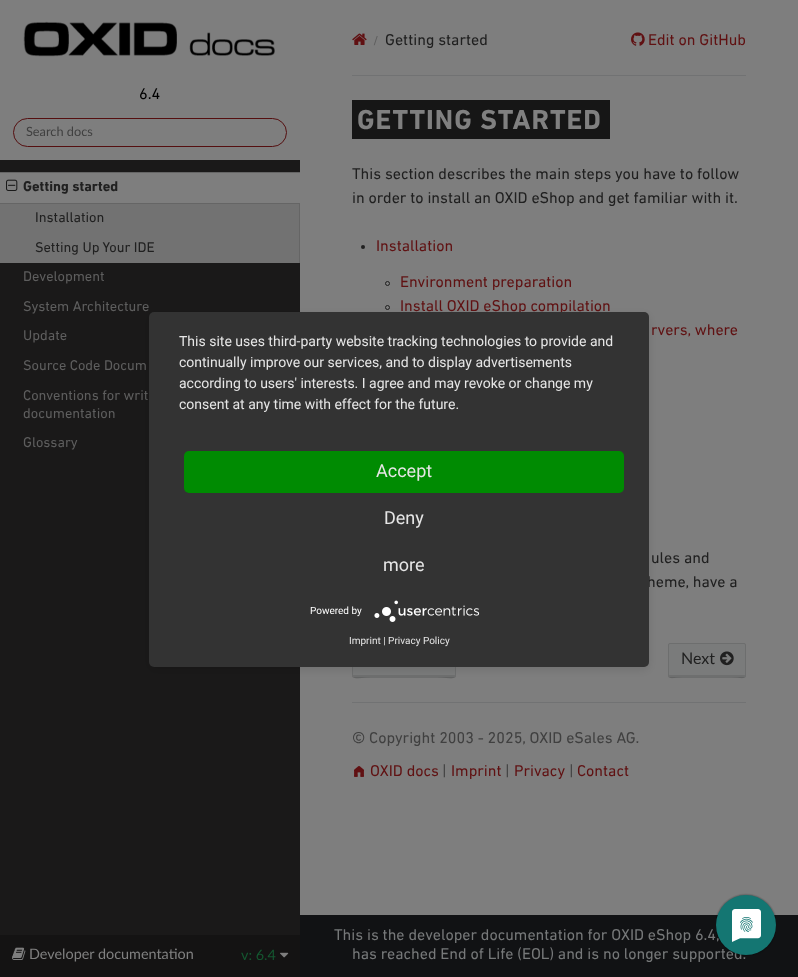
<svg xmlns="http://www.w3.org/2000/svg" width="798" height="977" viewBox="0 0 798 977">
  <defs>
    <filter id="blur1" x="-50%" y="-200%" width="200%" height="500%"><feGaussianBlur stdDeviation="5"/></filter>
    <clipPath id="clip1"><rect x="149" y="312" width="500" height="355" rx="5"/></clipPath>
    <filter id="blur2" x="-50%" y="-200%" width="200%" height="500%"><feGaussianBlur stdDeviation="18"/></filter>
  </defs>
  <rect width="100%" height="100%" fill="#7e7e7e"/>
  <rect x="0" y="160" width="300" height="775" fill="#1a1919"/>
  <image x="23" y="21" width="252" height="36" href="img1.png"/>
  <text x="139" y="99" font-family="DIN Next" font-size="16" fill="#000000">6.4</text>
  <rect x="13.5" y="118.5" width="273" height="28" rx="14" fill="none" stroke="#550f10"/>
  <text x="26" y="136" font-family="Lato" font-size="12.75" fill="#404040">Search docs</text>
  <rect x="0" y="204" width="299" height="59" fill="#727272"/>
  <rect x="0" y="173" width="300" height="30" fill="#7e7e7e"/>
  <rect x="0" y="172" width="300" height="1" fill="#656565"/>
  <rect x="0" y="203" width="300" height="1" fill="#656565"/>
  <image x="6" y="179" width="12" height="12" href="img2.png"/>
  <text x="23" y="191" font-family="DIN Next" font-size="14.4" font-weight="bold" fill="#202020">Getting started</text>
  <rect x="299" y="204" width="1" height="59" fill="#656565"/>
  <text x="35" y="222" font-family="DIN Next" font-size="14.4" fill="#202020">Installation</text>
  <text x="35" y="252" font-family="DIN Next" font-size="14.4" fill="#202020">Setting Up Your IDE</text>
  <text x="23" y="281" font-family="DIN Next" font-size="14.4" fill="#5e5e5e">Development</text>
  <text x="23" y="311" font-family="DIN Next" font-size="14.4" fill="#5e5e5e">System Architecture</text>
  <text x="23" y="340" font-family="DIN Next" font-size="14.4" fill="#5e5e5e">Update</text>
  <text x="23" y="370" font-family="DIN Next" font-size="14.4" fill="#5e5e5e">Source Code Docum</text>
  <text x="23" y="400" font-family="DIN Next" font-size="14.4" fill="#5e5e5e">Conventions for writ</text>
  <text x="23" y="418" font-family="DIN Next" font-size="14.4" fill="#5e5e5e">documentation</text>
  <text x="23" y="447" font-family="DIN Next" font-size="14.4" fill="#5e5e5e">Glossary</text>
  <image x="352" y="33" width="15" height="12" href="img3.png"/>
  <text x="373" y="45" font-family="DIN Next" font-size="13" fill="#5e5e5e">/</text>
  <text x="385" y="45" font-family="DIN Next" font-size="16" fill="#202020">Getting started</text>
  <image x="631" y="32" width="14" height="14" href="img4.png"/>
  <text x="648" y="45" font-family="DIN Next" font-size="16" fill="#601112">Edit on GitHub</text>
  <rect x="352" y="75" width="394" height="1" fill="#717273"/>
  <rect x="352" y="100" width="258" height="39" fill="#161616"/>
  <text x="357" y="129" font-family="DIN Next" font-size="28" font-weight="bold" letter-spacing="1" fill="#808080">GETTING STARTED</text>
  <text x="352" y="179" font-family="DIN Next" font-size="16" fill="#202020">This section describes the main steps you have to follow</text>
  <text x="352" y="203" font-family="DIN Next" font-size="16" fill="#202020">in order to install an OXID eShop and get familiar with it.</text>
  <circle cx="363" cy="247" r="2" fill="#202020"/>
  <text x="376" y="251" font-family="DIN Next" font-size="16" fill="#601112">Installation</text>
  <circle cx="387.5" cy="283.5" r="2" fill="none" stroke="#202020"/>
  <text x="400" y="287" font-family="DIN Next" font-size="16" fill="#601112">Environment preparation</text>
  <circle cx="387.5" cy="307.5" r="2" fill="none" stroke="#202020"/>
  <text x="400" y="311" font-family="DIN Next" font-size="16" fill="#601112">Install OXID eShop compilation</text>
  <text x="651" y="335" font-family="DIN Next" font-size="16" fill="#601112">rvers, where</text>
  <text x="651" y="563" font-family="DIN Next" font-size="16" fill="#202020">ules and</text>
  <text x="647" y="587" font-family="DIN Next" font-size="16" fill="#202020">heme, have a</text>
  <rect x="352" y="643" width="104" height="35" rx="2" fill="#7a7b7b"/>
  <path d="M353 674C353 682 361 677 371 677H437C447 677 455 682 455 674C455 675 455 675 454 675H354C353 675 353 675 353 674Z" fill="#6e6f6f"/>
  <rect x="352.5" y="643.5" width="103" height="34" rx="1.5" fill="none" stroke="#000000" stroke-opacity="0.1"/>
  <rect x="668" y="643" width="78" height="35" rx="2" fill="#7a7b7b"/>
  <path d="M669 674C669 681 674 677 682 677H732C740 677 745 681 745 674C745 675 745 675 744 675H669Z" fill="#6e6f6f"/>
  <rect x="668.5" y="643.5" width="77" height="34" rx="1.5" fill="none" stroke="#000000" stroke-opacity="0.1"/>
  <text x="681" y="664" font-family="Lato" font-size="16" fill="#202020">Next</text>
  <image x="720" y="651" width="14" height="15" href="img5.png"/>
  <rect x="352" y="702" width="394" height="1" fill="#717273"/>
  <text x="352" y="743" font-family="DIN Next" font-size="16" fill="#404040">© Copyright 2003 - 2025, OXID eSales AG.</text>
  <image x="354" y="766" width="10" height="11" href="img6.png"/>
  <text x="370" y="776" font-family="DIN Next" font-size="16" fill="#601112">OXID docs</text>
  <text x="442" y="776" font-family="DIN Next" font-size="16" fill="#404040">|</text>
  <text x="451" y="776" font-family="DIN Next" font-size="16" fill="#601112">Imprint</text>
  <text x="505" y="776" font-family="DIN Next" font-size="16" fill="#404040">|</text>
  <text x="514" y="776" font-family="DIN Next" font-size="16" fill="#601112">Privacy</text>
  <text x="569" y="776" font-family="DIN Next" font-size="16" fill="#404040">|</text>
  <text x="577" y="776" font-family="DIN Next" font-size="16" fill="#601112">Contact</text>
  <rect x="300" y="915" width="498" height="62" fill="#111214"/>
  <text x="334" y="940" font-family="DIN Next" font-size="16" fill="#767879">This is the developer documentation for OXID eShop 6.4,</text>
  <text x="352" y="959" font-family="DIN Next" font-size="16" fill="#767879">has reached End of Life (EOL) and is no longer supported.</text>
  <rect x="149" y="315" width="500" height="355" rx="5" fill="#000000" fill-opacity="0.1" filter="url(#blur1)"/>
  <g clip-path="url(#clip1)">
    <rect x="149" y="318" width="500" height="355" fill="#000000" fill-opacity="0.3" filter="url(#blur2)"/>
  </g>
  <rect x="149" y="312" width="500" height="355" rx="5" fill="#333333"/>
  <text x="179" y="346" font-family="Roboto" font-size="14" fill="#e6e6e6">This site uses third-party website tracking technologies to provide and</text>
  <text x="179" y="367" font-family="Roboto" font-size="14" fill="#e6e6e6">continually improve our services, and to display advertisements</text>
  <text x="179" y="388" font-family="Roboto" font-size="14" fill="#e6e6e6">according to users' interests. I agree and may revoke or change my</text>
  <text x="179" y="409" font-family="Roboto" font-size="14" fill="#e6e6e6">consent at any time with effect for the future.</text>
  <rect x="184" y="451" width="440" height="42" rx="5" fill="#008b02"/>
  <text x="376" y="477" font-family="Roboto" font-size="18" fill="#e6e6e6">Accept</text>
  <text x="384" y="524" font-family="Roboto" font-size="18" fill="#e6e6e6">Deny</text>
  <text x="383" y="571" font-family="Roboto" font-size="18" fill="#e6e6e6">more</text>
  <text x="310" y="614" font-family="Roboto" font-size="10" fill="#ffffff">Powered by</text>
  <image x="374" y="600" width="106" height="22" href="img7.png"/>
  <text x="349" y="644" font-family="Roboto" font-size="10" fill="#e6e6e6">Imprint | Privacy Policy</text>
  <image x="716" y="893" width="60" height="63" href="img8.png"/>
  <rect x="0" y="935" width="300" height="42" fill="#141313"/>
  <image x="12" y="947" width="14" height="13" href="img9.png"/>
  <text x="29" y="959" font-family="Lato" font-size="14.4" fill="#808080">Developer documentation</text>
  <text x="241" y="960" font-family="Lato" font-size="14.4" fill="#145730">v: 6.4</text>
  <image x="280" y="952" width="9" height="6" href="img10.png"/>
</svg>
